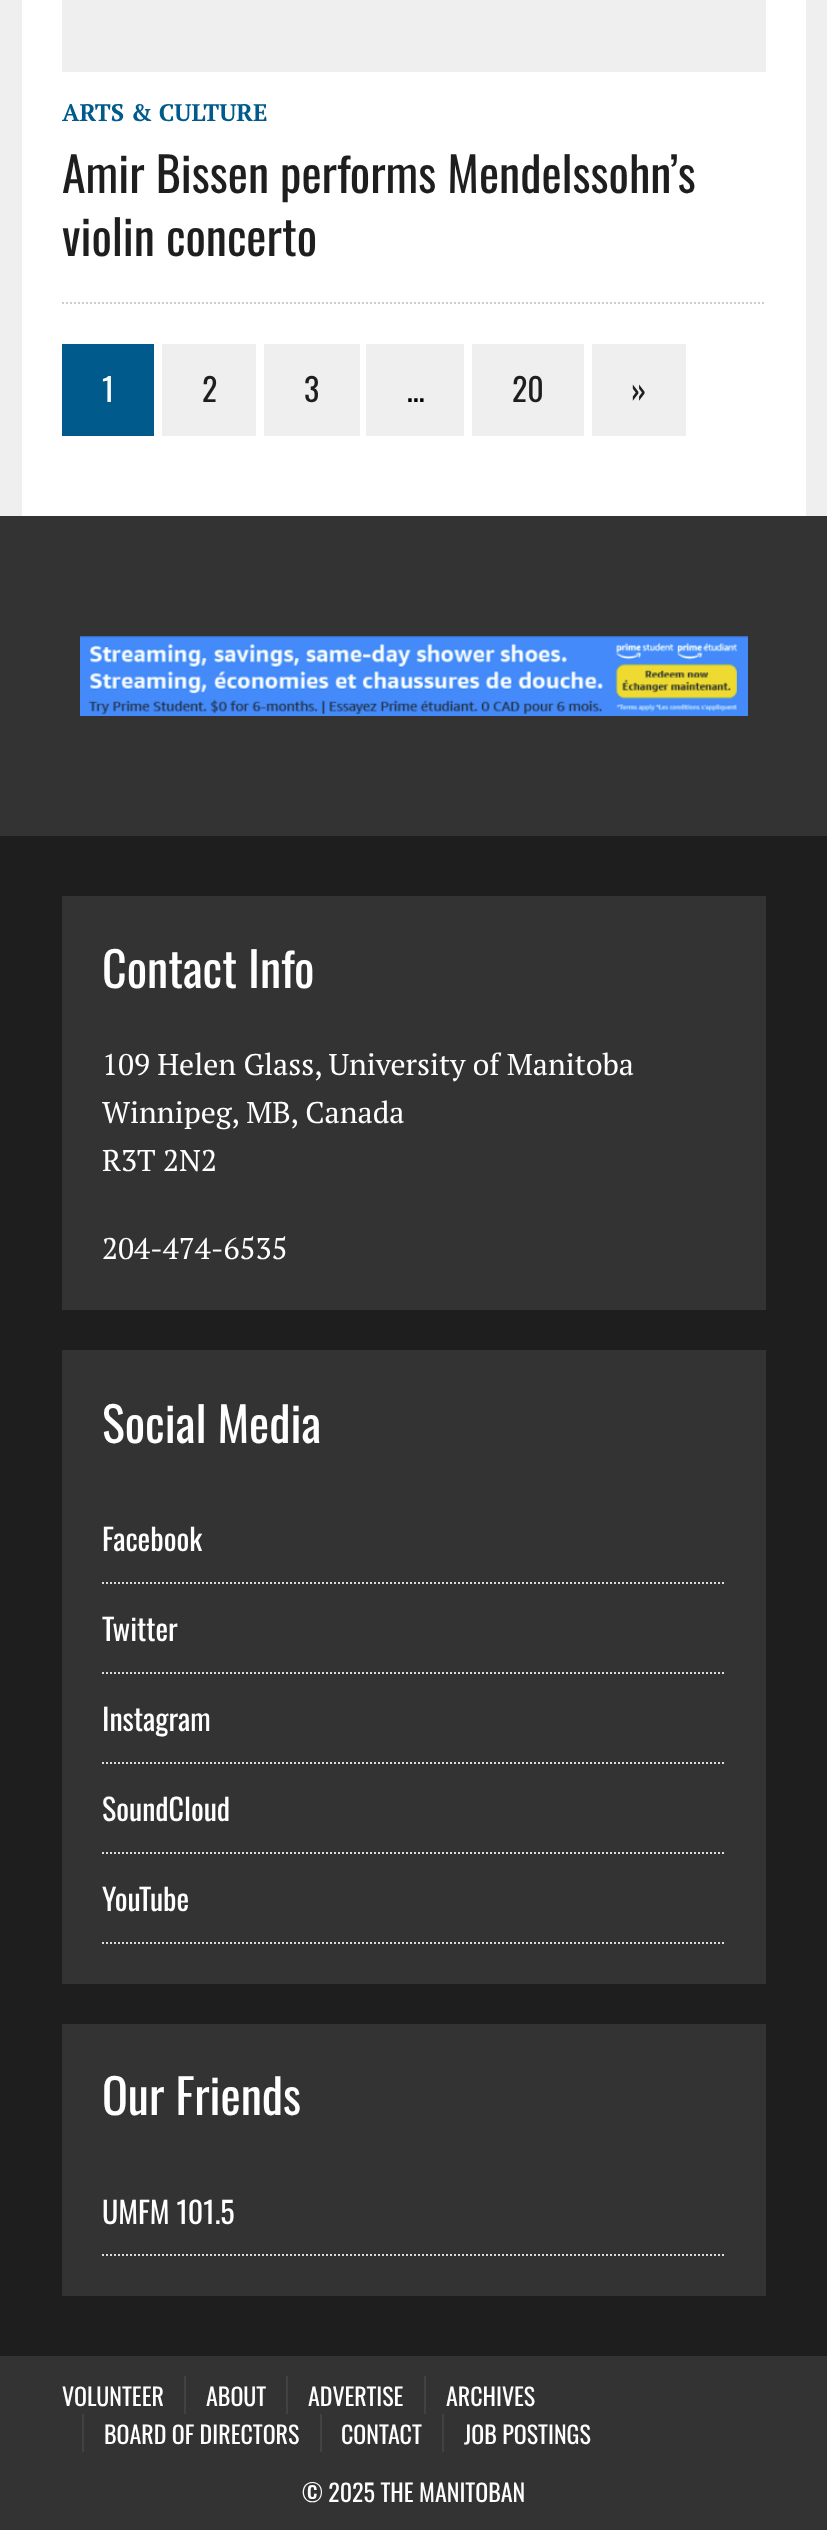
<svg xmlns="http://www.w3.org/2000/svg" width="827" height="2530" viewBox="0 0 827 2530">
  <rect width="100%" height="100%" fill="#efefef"/>
  <rect x="22" y="0" width="784" height="516" fill="#ffffff"/>
  <rect x="62" y="0" width="704" height="72" fill="#efefef"/>
  <text x="62" y="121" font-family="PT Serif" font-size="24" font-weight="bold" fill="#005a8c">ARTS &amp; CULTURE</text>
  <text x="62" y="193" font-family="Oswald" font-size="48" fill="#1f1e1e">Amir Bissen performs Mendelssohn’s</text>
  <text x="62" y="256" font-family="Oswald" font-size="48" fill="#1f1e1e">violin concerto</text>
  <path d="M62 303H766" fill="none" stroke="#cdcdcd" stroke-width="2" stroke-dasharray="2 2"/>
  <rect x="62" y="344" width="92" height="92" fill="#005a8c"/>
  <text x="102" y="402" font-family="Oswald" font-size="32" fill="#ffffff">1</text>
  <rect x="162" y="344" width="94" height="92" fill="#efefef"/>
  <text x="202" y="402" font-family="Oswald" font-size="32" fill="#1f1e1e">2</text>
  <rect x="264" y="344" width="96" height="92" fill="#efefef"/>
  <text x="304" y="402" font-family="Oswald" font-size="32" fill="#1f1e1e">3</text>
  <rect x="366" y="344" width="98" height="92" fill="#efefef"/>
  <text x="407" y="402" font-family="Oswald" font-size="32" fill="#000000">…</text>
  <rect x="472" y="344" width="112" height="92" fill="#efefef"/>
  <text x="512" y="402" font-family="Oswald" font-size="32" fill="#1f1e1e">20</text>
  <rect x="592" y="344" width="94" height="92" fill="#efefef"/>
  <text x="631" y="402" font-family="Oswald" font-size="32" fill="#1f1e1e">»</text>
  <rect x="0" y="836" width="827" height="1520" fill="#1f1e1e"/>
  <rect x="0" y="516" width="827" height="320" fill="#333333"/>
  <image x="80" y="636" width="668" height="80" href="img1.png"/>
  <rect x="62" y="896" width="704" height="414" fill="#333333"/>
  <text x="102" y="988" font-family="Oswald" font-size="48" fill="#ffffff">Contact Info</text>
  <text x="102" y="1075" font-family="PT Serif" font-size="30" fill="#ffffff">109 Helen Glass, University of Manitoba</text>
  <text x="102" y="1123" font-family="PT Serif" font-size="30" fill="#ffffff">Winnipeg, MB, Canada</text>
  <text x="102" y="1171" font-family="PT Serif" font-size="30" fill="#ffffff">R3T 2N2</text>
  <text x="102" y="1259" font-family="PT Serif" font-size="30" fill="#ffffff">204-474-6535</text>
  <rect x="62" y="1350" width="704" height="634" fill="#333333"/>
  <text x="102" y="1443" font-family="Oswald" font-size="48" fill="#ffffff">Social Media</text>
  <path d="M102 1583H726" fill="none" stroke="#dcdcdc" stroke-width="2" stroke-dasharray="2 2"/>
  <text x="102" y="1551" font-family="Oswald" font-size="30" fill="#ffffff">Facebook</text>
  <path d="M102 1673H726" fill="none" stroke="#dcdcdc" stroke-width="2" stroke-dasharray="2 2"/>
  <text x="102" y="1641" font-family="Oswald" font-size="30" fill="#ffffff">Twitter</text>
  <path d="M102 1763H726" fill="none" stroke="#dcdcdc" stroke-width="2" stroke-dasharray="2 2"/>
  <text x="102" y="1731" font-family="Oswald" font-size="30" fill="#ffffff">Instagram</text>
  <path d="M102 1853H726" fill="none" stroke="#dcdcdc" stroke-width="2" stroke-dasharray="2 2"/>
  <text x="102" y="1821" font-family="Oswald" font-size="30" fill="#ffffff">SoundCloud</text>
  <path d="M102 1943H726" fill="none" stroke="#dcdcdc" stroke-width="2" stroke-dasharray="2 2"/>
  <text x="102" y="1911" font-family="Oswald" font-size="30" fill="#ffffff">YouTube</text>
  <rect x="62" y="2024" width="704" height="272" fill="#333333"/>
  <text x="102" y="2115" font-family="Oswald" font-size="48" fill="#ffffff">Our Friends</text>
  <path d="M102 2255H726" fill="none" stroke="#dcdcdc" stroke-width="2" stroke-dasharray="2 2"/>
  <text x="102" y="2224" font-family="Oswald" font-size="30" fill="#ffffff">UMFM 101.5</text>
  <rect x="0" y="2356" width="827" height="174" fill="#333333"/>
  <text x="62" y="2406" font-family="Oswald" font-size="24" fill="#ffffff">VOLUNTEER</text>
  <rect x="184" y="2376" width="2" height="38" fill="#424242"/>
  <text x="206" y="2406" font-family="Oswald" font-size="24" fill="#ffffff">ABOUT</text>
  <rect x="286" y="2376" width="2" height="38" fill="#424242"/>
  <text x="308" y="2406" font-family="Oswald" font-size="24" fill="#ffffff">ADVERTISE</text>
  <rect x="424" y="2376" width="2" height="38" fill="#424242"/>
  <text x="446" y="2406" font-family="Oswald" font-size="24" fill="#ffffff">ARCHIVES</text>
  <rect x="82" y="2414" width="2" height="38" fill="#424242"/>
  <text x="104" y="2444" font-family="Oswald" font-size="24" fill="#ffffff">BOARD OF DIRECTORS</text>
  <rect x="320" y="2414" width="2" height="38" fill="#424242"/>
  <text x="341" y="2444" font-family="Oswald" font-size="24" fill="#ffffff">CONTACT</text>
  <rect x="442" y="2414" width="2" height="38" fill="#424242"/>
  <text x="464" y="2444" font-family="Oswald" font-size="24" fill="#ffffff">JOB POSTINGS</text>
  <text x="302" y="2502" font-family="Oswald" font-size="24" fill="#ffffff">© 2025 THE MANITOBAN</text>
</svg>
